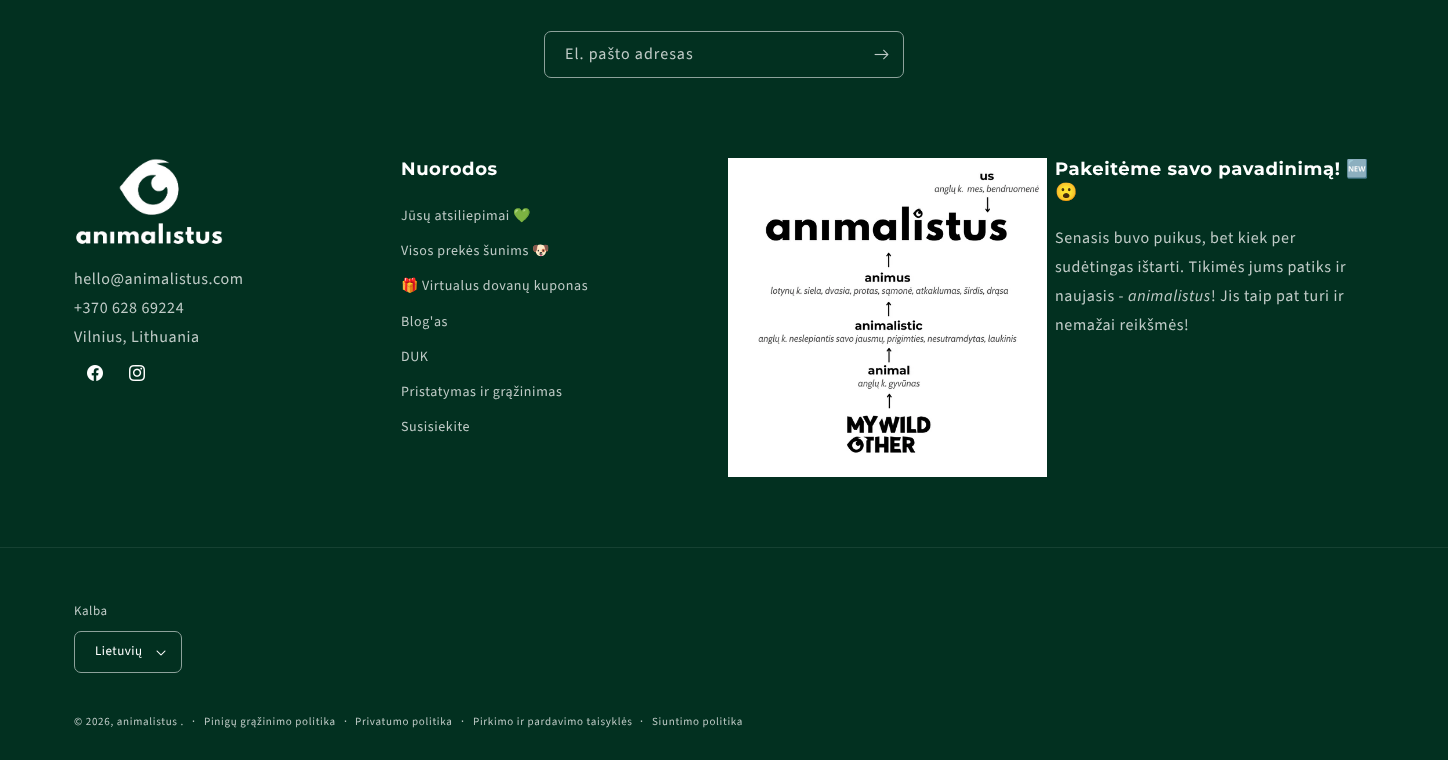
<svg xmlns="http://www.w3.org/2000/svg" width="1448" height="760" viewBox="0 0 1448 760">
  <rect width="100%" height="100%" fill="#023020"/>
  <rect x="544.5" y="31.5" width="359" height="46" rx="6.5" fill="none" stroke="#8da29b"/>
  <text x="565" y="59" font-family="Source Sans Pro" font-size="16" letter-spacing="1" fill="#c0cbc7">El. pašto adresas</text>
  <image x="874" y="49" width="15" height="11" href="img1.png"/>
  <image x="76" y="158" width="147" height="86" href="img2.png"/>
  <text x="74" y="284" font-family="Source Sans Pro" font-size="16" letter-spacing="0.6" fill="#c0cbc7">hello@animalistus.com</text>
  <text x="74" y="313" font-family="Source Sans Pro" font-size="16" letter-spacing="0.6" fill="#c0cbc7">+370 628 69224</text>
  <text x="74" y="342" font-family="Source Sans Pro" font-size="16" letter-spacing="0.6" fill="#c0cbc7">Vilnius, Lithuania</text>
  <image x="87" y="365" width="16" height="16" href="img3.png"/>
  <image x="129" y="365" width="16" height="16" href="img4.png"/>
  <text x="401" y="175" font-family="Montserrat" font-size="18" font-weight="bold" letter-spacing="0.6" fill="#ffffff">Nuorodos</text>
  <text x="401" y="220" font-family="Source Sans Pro" font-size="14" letter-spacing="0.6" fill="#c0cbc7">Jūsų atsiliepimai</text>
  <text x="513" y="220" font-family="Noto Color Emoji" font-size="14" letter-spacing="0.6" fill="#c0cbc7">💚</text>
  <text x="401" y="255" font-family="Source Sans Pro" font-size="14" letter-spacing="0.6" fill="#c0cbc7">Visos prekės šunims</text>
  <text x="532" y="255" font-family="Noto Color Emoji" font-size="14" letter-spacing="0.6" fill="#c0cbc7">🐶</text>
  <text x="401" y="290" font-family="Noto Color Emoji" font-size="14" letter-spacing="0.6" fill="#c0cbc7">🎁</text>
  <text x="422" y="290" font-family="Source Sans Pro" font-size="14" letter-spacing="0.6" fill="#c0cbc7">Virtualus dovanų kuponas</text>
  <text x="401" y="326" font-family="Source Sans Pro" font-size="14" letter-spacing="0.6" fill="#c0cbc7">Blog'as</text>
  <text x="401" y="361" font-family="Source Sans Pro" font-size="14" letter-spacing="0.6" fill="#c0cbc7">DUK</text>
  <text x="401" y="396" font-family="Source Sans Pro" font-size="14" letter-spacing="0.6" fill="#c0cbc7">Pristatymas ir grąžinimas</text>
  <text x="401" y="431" font-family="Source Sans Pro" font-size="14" letter-spacing="0.6" fill="#c0cbc7">Susisiekite</text>
  <image x="728" y="158" width="319" height="319" href="img5.png"/>
  <text x="1055" y="175" font-family="Montserrat" font-size="18" font-weight="bold" letter-spacing="0.6" fill="#ffffff">Pakeitėme savo pavadinimą!</text>
  <text x="1346" y="175" font-family="Noto Color Emoji" font-size="18" font-weight="bold" letter-spacing="0.6" fill="#ffffff">🆕</text>
  <text x="1055" y="198" font-family="Noto Color Emoji" font-size="18" font-weight="bold" letter-spacing="0.6" fill="#ffffff">😮</text>
  <text x="1055" y="243" font-family="Source Sans Pro" font-size="16" letter-spacing="0.6" fill="#c0cbc7">Senasis buvo puikus, bet kiek per</text>
  <text x="1055" y="272" font-family="Source Sans Pro" font-size="16" letter-spacing="0.6" fill="#c0cbc7">sudėtingas ištarti. Tikimės jums patiks ir</text>
  <text x="1055" y="301" font-family="Source Sans Pro" font-size="16" letter-spacing="0.6" fill="#c0cbc7">naujasis -</text>
  <text x="1128" y="301" font-family="Source Sans Pro" font-size="16" font-style="italic" letter-spacing="0.6" fill="#c0cbc7">animalistus</text>
  <text x="1211" y="301" font-family="Source Sans Pro" font-size="16" letter-spacing="0.6" fill="#c0cbc7">! Jis taip pat turi ir</text>
  <text x="1055" y="330" font-family="Source Sans Pro" font-size="16" letter-spacing="0.6" fill="#c0cbc7">nemažai reikšmės!</text>
  <rect x="0" y="547" width="1448" height="1" fill="#164132"/>
  <text x="74" y="615" font-family="Source Sans Pro" font-size="13" letter-spacing="0.5" fill="#c0cbc7">Kalba</text>
  <image x="156" y="650" width="10" height="6" href="img6.png"/>
  <rect x="74.5" y="631.5" width="107" height="41" rx="6.5" fill="none" stroke="#8da29b"/>
  <text x="95" y="655" font-family="Source Sans Pro" font-size="13" letter-spacing="0.5" fill="#ffffff">Lietuvių</text>
  <text x="74" y="725" font-family="Source Sans Pro" font-size="11" letter-spacing="0.7" fill="#c0cbc7">© 2026, animalistus .</text>
  <text x="192" y="725" font-family="Source Sans Pro" font-size="12" letter-spacing="0.7" fill="#c0cbc7">·</text>
  <text x="204" y="725" font-family="Source Sans Pro" font-size="11" letter-spacing="0.7" fill="#c0cbc7">Pinigų grąžinimo politika</text>
  <text x="344" y="725" font-family="Source Sans Pro" font-size="12" letter-spacing="0.7" fill="#c0cbc7">·</text>
  <text x="355" y="725" font-family="Source Sans Pro" font-size="11" letter-spacing="0.7" fill="#c0cbc7">Privatumo politika</text>
  <text x="461" y="725" font-family="Source Sans Pro" font-size="12" letter-spacing="0.7" fill="#c0cbc7">·</text>
  <text x="473" y="725" font-family="Source Sans Pro" font-size="11" letter-spacing="0.7" fill="#c0cbc7">Pirkimo ir pardavimo taisyklės</text>
  <text x="640" y="725" font-family="Source Sans Pro" font-size="12" letter-spacing="0.7" fill="#c0cbc7">·</text>
  <text x="652" y="725" font-family="Source Sans Pro" font-size="11" letter-spacing="0.7" fill="#c0cbc7">Siuntimo politika</text>
</svg>
